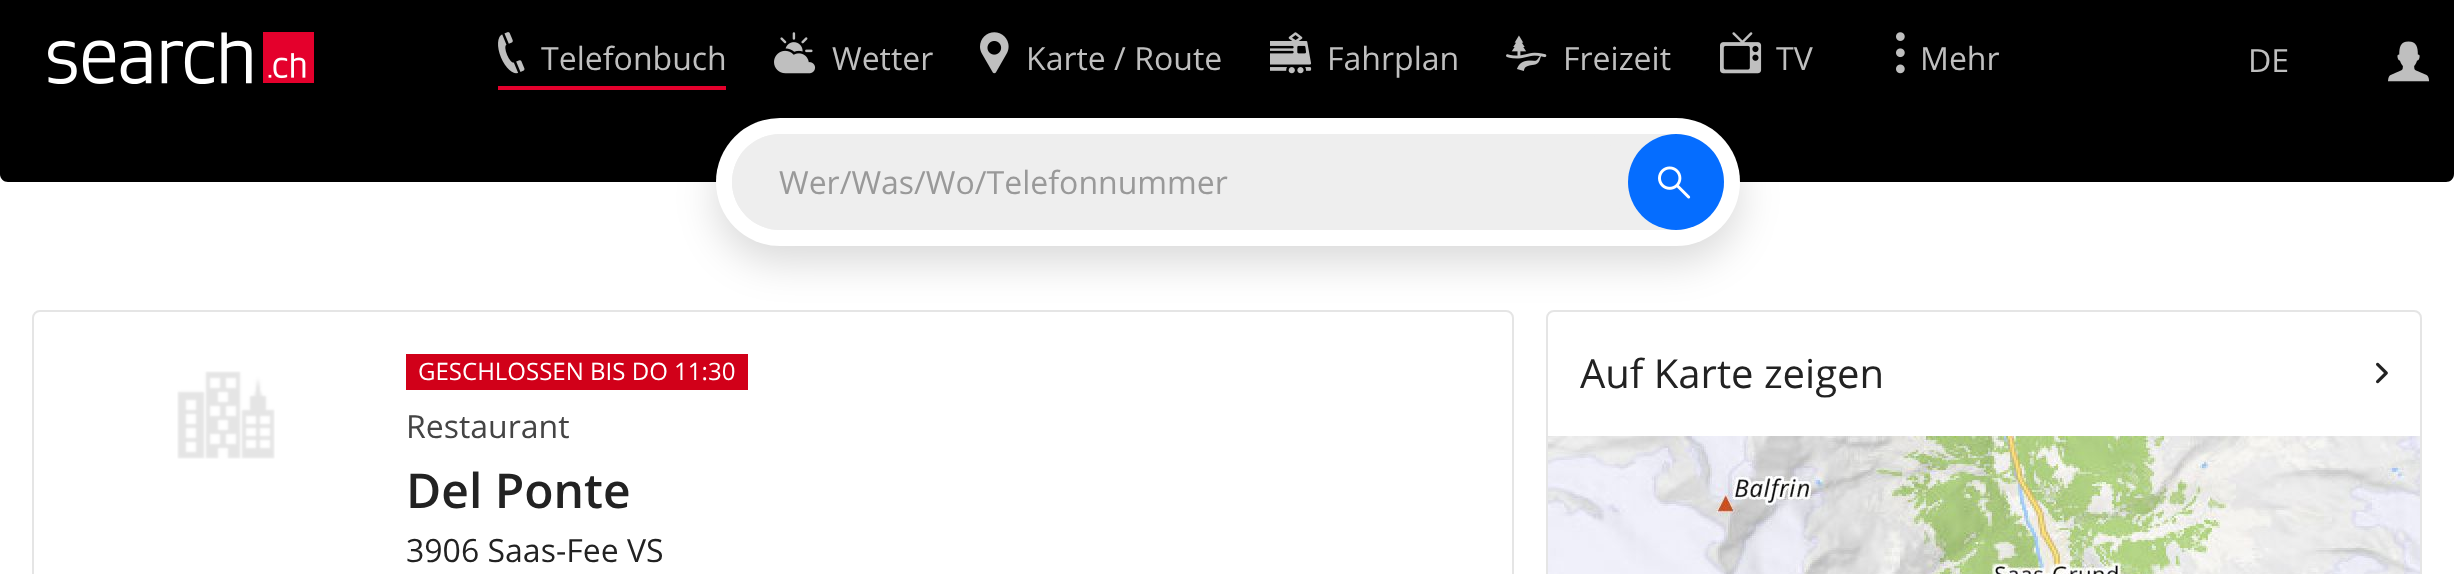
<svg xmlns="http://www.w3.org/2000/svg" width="2454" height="574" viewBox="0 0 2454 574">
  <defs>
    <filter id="blur1" x="-50%" y="-200%" width="200%" height="500%"><feGaussianBlur stdDeviation="20"/></filter>
  </defs>
  <rect width="100%" height="100%" fill="#ffffff"/>
  <rect x="0" y="0" width="2454" height="118" fill="#000000"/>
  <image x="48" y="32" width="266" height="52" href="img1.png"/>
  <rect x="498" y="86" width="228" height="4" fill="#e4002c"/>
  <image x="498" y="32" width="27" height="42" href="img2.png"/>
  <text x="541" y="70" font-family="Open Sans" font-size="32" fill="#bfbfbf">Telefonbuch</text>
  <image x="774" y="32" width="42" height="42" href="img3.png"/>
  <text x="832" y="70" font-family="Open Sans" font-size="32" fill="#bfbfbf">Wetter</text>
  <image x="980" y="32" width="29" height="42" href="img4.png"/>
  <text x="1026" y="70" font-family="Open Sans" font-size="32" fill="#bfbfbf">Karte / Route</text>
  <image x="1270" y="32" width="42" height="42" href="img5.png"/>
  <text x="1327" y="70" font-family="Open Sans" font-size="32" fill="#bfbfbf">Fahrplan</text>
  <image x="1506" y="35" width="41" height="36" href="img6.png"/>
  <text x="1563" y="70" font-family="Open Sans" font-size="32" fill="#bfbfbf">Freizeit</text>
  <image x="1720" y="32" width="42" height="42" href="img7.png"/>
  <text x="1776" y="70" font-family="Open Sans" font-size="32" fill="#bfbfbf">TV</text>
  <image x="1896" y="32" width="9" height="42" href="img8.png"/>
  <text x="1920" y="70" font-family="Open Sans" font-size="32" fill="#bfbfbf">Mehr</text>
  <text x="2248" y="72" font-family="Open Sans" font-size="32" fill="#bfbfbf">DE</text>
  <image x="2388" y="41" width="42" height="41" href="img9.png"/>
  <path d="M0 118H2454V174C2454 178.5 2450.5 182 2446 182H8C3.5 182 0 178.5 0 174Z" fill="#000000"/>
  <rect x="33" y="311" width="1480" height="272" rx="7" fill="none" stroke="#e5e5e5" stroke-width="2"/>
  <rect x="1547" y="311" width="874" height="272" rx="7" fill="none" stroke="#e5e5e5" stroke-width="2"/>
  <rect x="716" y="134" width="1024" height="128" rx="64" fill="#000000" fill-opacity="0.15" filter="url(#blur1)"/>
  <rect x="716" y="118" width="1024" height="128" rx="64" fill="#ffffff"/>
  <rect x="732" y="134" width="992" height="96" rx="48" fill="#eeeeee"/>
  <rect x="732" y="134" width="896" height="96" rx="48" fill="#eeeeee"/>
  <text x="779" y="194" font-family="Open Sans" font-size="32" fill="#999999">Wer/Was/Wo/Telefonnummer</text>
  <circle cx="1676" cy="182" r="48" fill="#056dff"/>
  <image x="1658" y="166" width="33" height="33" href="img10.png"/>
  <image x="177" y="371" width="98" height="88" href="img11.png"/>
  <rect x="406" y="354" width="342" height="36" fill="#d10019"/>
  <text x="418" y="380" font-family="Open Sans" font-size="24" fill="#ffffff">GESCHLOSSEN BIS DO 11:30</text>
  <text x="406" y="438" font-family="Open Sans" font-size="32" fill="#444444">Restaurant</text>
  <text x="406" y="508" font-family="Open Sans" font-size="48" font-weight="600" fill="#222222">Del Ponte</text>
  <text x="406" y="562" font-family="Open Sans" font-size="32" fill="#222222">3906 Saas-Fee VS</text>
  <text x="1580" y="388" font-family="Open Sans" font-size="40" fill="#222222">Auf Karte zeigen</text>
  <image x="2376" y="362" width="12" height="22" href="img12.png"/>
  <image x="1548" y="436" width="872" height="138" href="img13.png"/>
</svg>
